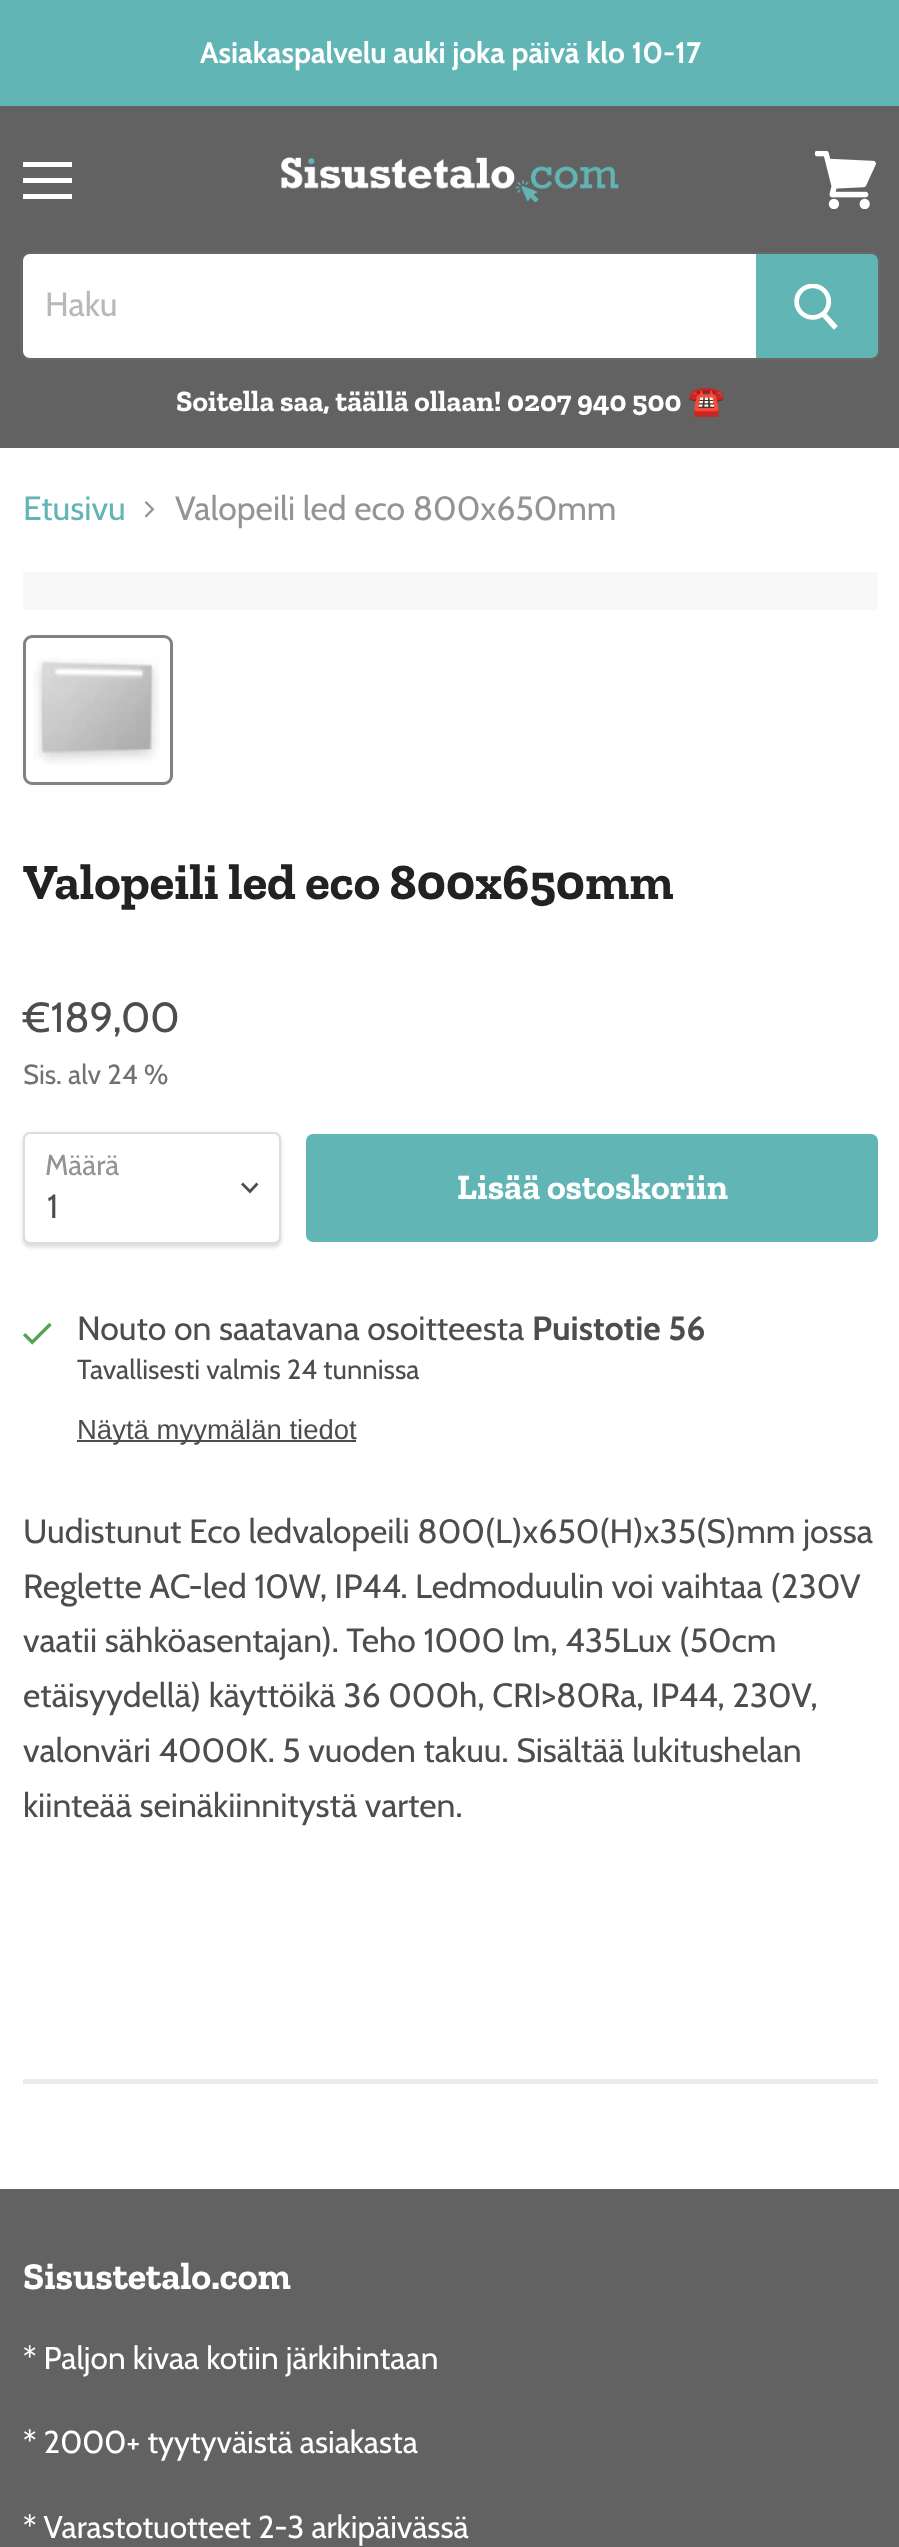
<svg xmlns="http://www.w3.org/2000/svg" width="899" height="2547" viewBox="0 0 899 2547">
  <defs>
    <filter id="blur1" x="-50%" y="-200%" width="200%" height="500%"><feGaussianBlur stdDeviation="2"/></filter>
  </defs>
  <rect width="100%" height="100%" fill="#ffffff"/>
  <rect x="0" y="0" width="899" height="106" fill="#62b5b5"/>
  <text x="200" y="63" font-family="Cabin" font-size="29.5" font-weight="bold" fill="#ffffff">Asiakaspalvelu auki joka päivä klo 10-17</text>
  <rect x="0" y="106" width="899" height="342" fill="#626262"/>
  <rect x="23" y="162" width="49" height="5" fill="#ffffff"/>
  <rect x="23" y="178" width="49" height="5" fill="#ffffff"/>
  <rect x="23" y="194" width="49" height="5" fill="#ffffff"/>
  <image x="815" y="151" width="61" height="58" href="img1.png"/>
  <image x="281" y="157" width="338" height="46" href="img2.png"/>
  <rect x="21" y="253" width="858" height="106" rx="8" fill="none" stroke="#686868" stroke-width="2"/>
  <path d="M30 254H756V358H30C26 358 23 355 23 351V261C23 257 26 254 30 254Z" fill="#ffffff"/>
  <text x="45" y="316" font-family="Cabin" font-size="33.75" fill="#b8b8b8">Haku</text>
  <path d="M757 255H871C874.5 255 877 257.5 877 261V351C877 354.5 874.5 357 871 357H757Z" fill="#62b5b5" stroke="#62b5b5" stroke-width="2"/>
  <image x="794" y="284" width="44" height="46" href="img3.png"/>
  <text x="176" y="411" font-family="Zilla Slab" font-size="29.5" font-weight="bold" fill="#ffffff">Soitella saa, täällä ollaan! 0207 940 500</text>
  <text x="688" y="411" font-family="Noto Color Emoji" font-size="29.5" font-weight="bold" fill="#ffffff">☎️</text>
  <text x="23" y="520" font-family="Cabin" font-size="33.75" fill="#62b5b5">Etusivu</text>
  <image x="144" y="501" width="11" height="17" href="img4.png"/>
  <text x="175" y="520" font-family="Cabin" font-size="33.75" fill="#949494">Valopeili led eco 800x650mm</text>
  <rect x="23" y="572" width="855" height="38" fill="#f8f8f8"/>
  <rect x="24.5" y="636.5" width="147" height="147" rx="7.5" fill="none" stroke="#818181" stroke-width="3"/>
  <image x="33" y="657" width="127" height="108" href="img5.png"/>
  <text x="23" y="899" font-family="Zilla Slab" font-size="50.6" font-weight="bold" fill="#222222">Valopeili led eco 800x650mm</text>
  <text x="23" y="1032" font-family="Cabin" font-size="42" fill="#4d4d4d">€189,00</text>
  <text x="23" y="1084" font-family="Cabin" font-size="27.5" fill="#717171">Sis. alv 24 %</text>
  <rect x="23" y="1134" width="258" height="113" rx="7" fill="#000000" fill-opacity="0.15" filter="url(#blur1)"/>
  <rect x="24" y="1133" width="256" height="110" rx="6" fill="#ffffff" stroke="#dddddd" stroke-width="2"/>
  <text x="45" y="1175" font-family="Cabin" font-size="29" fill="#949494">Määrä</text>
  <path d="M250 1191.5L256.5 1184.5M250 1191.5L243 1184.5" fill="none" stroke="#4d4d4d" stroke-width="2.8" stroke-linecap="square"/>
  <text x="47" y="1218" font-family="Cabin" font-size="33.75" fill="#4d4d4d">1</text>
  <rect x="307" y="1135" width="570" height="106" rx="6" fill="#62b5b5" stroke="#62b5b5" stroke-width="2"/>
  <text x="457" y="1199" font-family="Zilla Slab" font-size="35.75" font-weight="bold" fill="#ffffff">Lisää ostoskoriin</text>
  <image x="23" y="1322" width="29" height="23" href="img6.png"/>
  <text x="77" y="1340" font-family="Cabin" font-size="33.75" fill="#4d4d4d">Nouto on saatavana osoitteesta</text>
  <text x="532" y="1340" font-family="Cabin" font-size="33.75" font-weight="bold" fill="#4d4d4d">Puistotie 56</text>
  <text x="77" y="1379" font-family="Cabin" font-size="27.5" fill="#4d4d4d">Tavallisesti valmis 24 tunnissa</text>
  <rect x="77" y="1440" width="279" height="2" fill="#4d4d4d"/>
  <text x="77" y="1439" font-family="Liberation Sans" font-size="27.5" fill="#4d4d4d">Näytä myymälän tiedot</text>
  <text x="23" y="1543" font-family="Cabin" font-size="33.75" fill="#4d4d4d">Uudistunut Eco ledvalopeili 800(L)x650(H)x35(S)mm jossa</text>
  <text x="23" y="1598" font-family="Cabin" font-size="33.75" fill="#4d4d4d">Reglette AC-led 10W, IP44. Ledmoduulin voi vaihtaa (230V</text>
  <text x="23" y="1652" font-family="Cabin" font-size="33.75" fill="#4d4d4d">vaatii sähköasentajan). Teho 1000 lm, 435Lux (50cm</text>
  <text x="23" y="1707" font-family="Cabin" font-size="33.75" fill="#4d4d4d">etäisyydellä) käyttöikä 36 000h, CRI&gt;80Ra, IP44, 230V,</text>
  <text x="23" y="1762" font-family="Cabin" font-size="33.75" fill="#4d4d4d">valonväri 4000K. 5 vuoden takuu. Sisältää lukitushelan</text>
  <text x="23" y="1817" font-family="Cabin" font-size="33.75" fill="#4d4d4d">kiinteää seinäkiinnitystä varten.</text>
  <rect x="23" y="2079" width="855" height="5" fill="#808080" fill-opacity="0.16"/>
  <rect x="0" y="2189" width="899" height="358" fill="#626262"/>
  <text x="23" y="2289" font-family="Zilla Slab" font-size="38" font-weight="bold" fill="#ffffff">Sisustetalo.com</text>
  <text x="23" y="2369" font-family="Cabin" font-size="31.6" fill="#ffffff">* Paljon kivaa kotiin järkihintaan</text>
  <text x="23" y="2453" font-family="Cabin" font-size="31.6" fill="#ffffff">* 2000+ tyytyväistä asiakasta</text>
  <text x="23" y="2538" font-family="Cabin" font-size="31.6" fill="#ffffff">* Varastotuotteet 2-3 arkipäivässä</text>
</svg>
